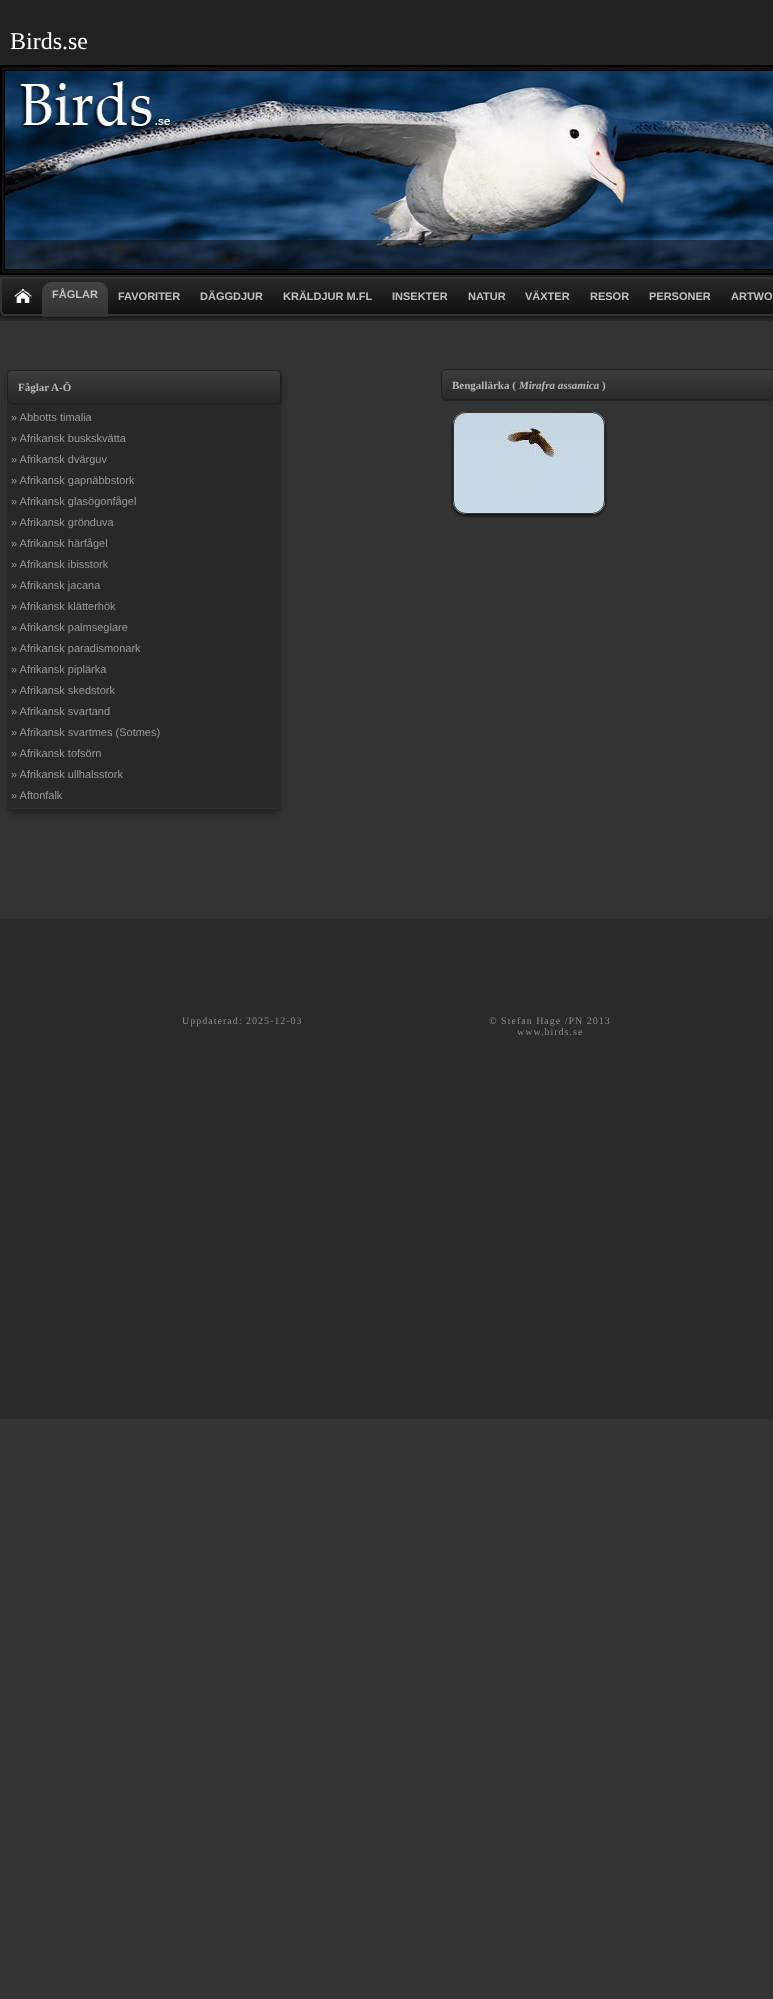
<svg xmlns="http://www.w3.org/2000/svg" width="773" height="1999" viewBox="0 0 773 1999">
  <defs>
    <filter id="blur1" x="-50%" y="-200%" width="200%" height="500%"><feGaussianBlur stdDeviation="1"/></filter>
    <linearGradient id="g1" gradientUnits="userSpaceOnUse" x1="554" y1="279" x2="554" y2="314"><stop offset="0" stop-color="#282828"/><stop offset="1" stop-color="#111111"/></linearGradient>
    <linearGradient id="g2" gradientUnits="userSpaceOnUse" x1="75" y1="282" x2="75" y2="317"><stop offset="0" stop-color="#434343"/><stop offset="1" stop-color="#333333"/></linearGradient>
    <filter id="blur2" x="-50%" y="-200%" width="200%" height="500%"><feGaussianBlur stdDeviation="2.5"/></filter>
    <filter id="blur3" x="-50%" y="-200%" width="200%" height="500%"><feGaussianBlur stdDeviation="0.5"/></filter>
    <clipPath id="clip1"><rect x="7" y="370" width="274" height="34" rx="5"/></clipPath>
    <linearGradient id="g3" gradientUnits="userSpaceOnUse" x1="144" y1="371" x2="144" y2="403"><stop offset="0" stop-color="#3d3d3d"/><stop offset="1" stop-color="#282828"/></linearGradient>
    <clipPath id="clip2"><rect x="441" y="369" width="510" height="31" rx="5"/></clipPath>
    <linearGradient id="g4" gradientUnits="userSpaceOnUse" x1="696" y1="370" x2="696" y2="399"><stop offset="0" stop-color="#3d3d3d"/><stop offset="1" stop-color="#282828"/></linearGradient>
    <filter id="blur4" x="-50%" y="-200%" width="200%" height="500%"><feGaussianBlur stdDeviation="1.5"/></filter>
  </defs>
  <rect width="100%" height="100%" fill="#333333"/>
  <rect x="0" y="275" width="773" height="46" fill="#262626"/>
  <rect x="0" y="0" width="773" height="65" fill="#212121"/>
  <text x="10" y="49" font-family="Liberation Serif" font-size="24" fill="#ffffff">Birds.se</text>
  <rect x="1" y="66" width="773" height="208" fill="#111111" stroke="#000000" stroke-width="2"/>
  <image x="4" y="70" width="769" height="200" href="img1.png"/>
  <rect x="0" y="278" width="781" height="39" rx="5" fill="#101010" filter="url(#blur1)"/>
  <rect x="0" y="279" width="773" height="35" fill="url(#g1)"/>
  <path d="M1 278H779V311C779 313 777 315 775 315H5C3 315 1 313 1 311Z" fill="none" stroke="#333333" stroke-width="2"/>
  <image x="14" y="289" width="18" height="14" href="img2.png"/>
  <path d="M52 282H98C103.5 282 108 286.5 108 292V317H42V292C42 286.5 46.5 282 52 282Z" fill="url(#g2)"/>
  <text x="52" y="298" font-family="Liberation Sans" font-size="11" font-weight="bold" fill="#c0c0c0">FÅGLAR</text>
  <text x="118" y="300" font-family="Liberation Sans" font-size="11" font-weight="bold" fill="#c0c0c0">FAVORITER</text>
  <text x="200" y="300" font-family="Liberation Sans" font-size="11" font-weight="bold" fill="#c0c0c0">DÄGGDJUR</text>
  <text x="283" y="300" font-family="Liberation Sans" font-size="11" font-weight="bold" fill="#c0c0c0">KRÄLDJUR M.FL</text>
  <text x="392" y="300" font-family="Liberation Sans" font-size="11" font-weight="bold" fill="#c0c0c0">INSEKTER</text>
  <text x="468" y="300" font-family="Liberation Sans" font-size="11" font-weight="bold" fill="#c0c0c0">NATUR</text>
  <text x="525" y="300" font-family="Liberation Sans" font-size="11" font-weight="bold" fill="#c0c0c0">VÄXTER</text>
  <text x="590" y="300" font-family="Liberation Sans" font-size="11" font-weight="bold" fill="#c0c0c0">RESOR</text>
  <text x="649" y="300" font-family="Liberation Sans" font-size="11" font-weight="bold" fill="#c0c0c0">PERSONER</text>
  <text x="731" y="300" font-family="Liberation Sans" font-size="11" font-weight="bold" fill="#c0c0c0">ARTWO</text>
  <rect x="6" y="374" width="276" height="440" rx="5" fill="#212121" filter="url(#blur2)"/>
  <rect x="6.5" y="369.5" width="275" height="439" rx="4.5" fill="#282828" stroke="#303030"/>
  <rect x="8" y="371" width="274" height="34" rx="5" fill="#222222" filter="url(#blur3)"/>
  <g clip-path="url(#clip1)">
    <rect x="7" y="371" width="274" height="32" fill="url(#g3)"/>
  </g>
  <rect x="7.5" y="370.5" width="273" height="33" rx="4.5" fill="none" stroke="#212121"/>
  <text x="18" y="391" font-family="Liberation Serif" font-size="11" font-weight="bold" fill="#b7b7b7">Fåglar A-Ö</text>
  <text x="11" y="421" font-family="Liberation Sans" font-size="11" fill="#999999">» Abbotts timalia</text>
  <text x="11" y="442" font-family="Liberation Sans" font-size="11" fill="#999999">» Afrikansk buskskvätta</text>
  <text x="11" y="463" font-family="Liberation Sans" font-size="11" fill="#999999">» Afrikansk dvärguv</text>
  <text x="11" y="484" font-family="Liberation Sans" font-size="11" fill="#999999">» Afrikansk gapnäbbstork</text>
  <text x="11" y="505" font-family="Liberation Sans" font-size="11" fill="#999999">» Afrikansk glasögonfågel</text>
  <text x="11" y="526" font-family="Liberation Sans" font-size="11" fill="#999999">» Afrikansk grönduva</text>
  <text x="11" y="547" font-family="Liberation Sans" font-size="11" fill="#999999">» Afrikansk härfågel</text>
  <text x="11" y="568" font-family="Liberation Sans" font-size="11" fill="#999999">» Afrikansk ibisstork</text>
  <text x="11" y="589" font-family="Liberation Sans" font-size="11" fill="#999999">» Afrikansk jacana</text>
  <text x="11" y="610" font-family="Liberation Sans" font-size="11" fill="#999999">» Afrikansk klätterhök</text>
  <text x="11" y="631" font-family="Liberation Sans" font-size="11" fill="#999999">» Afrikansk palmseglare</text>
  <text x="11" y="652" font-family="Liberation Sans" font-size="11" fill="#999999">» Afrikansk paradismonark</text>
  <text x="11" y="673" font-family="Liberation Sans" font-size="11" fill="#999999">» Afrikansk piplärka</text>
  <text x="11" y="694" font-family="Liberation Sans" font-size="11" fill="#999999">» Afrikansk skedstork</text>
  <text x="11" y="715" font-family="Liberation Sans" font-size="11" fill="#999999">» Afrikansk svartand</text>
  <text x="11" y="736" font-family="Liberation Sans" font-size="11" fill="#999999">» Afrikansk svartmes (Sotmes)</text>
  <text x="11" y="757" font-family="Liberation Sans" font-size="11" fill="#999999">» Afrikansk tofsörn</text>
  <text x="11" y="778" font-family="Liberation Sans" font-size="11" fill="#999999">» Afrikansk ullhalsstork</text>
  <text x="11" y="799" font-family="Liberation Sans" font-size="11" fill="#999999">» Aftonfalk</text>
  <rect x="442" y="370" width="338" height="31" rx="5" fill="#222222" filter="url(#blur3)"/>
  <g clip-path="url(#clip2)">
    <rect x="441" y="370" width="332" height="29" fill="url(#g4)"/>
  </g>
  <rect x="441.5" y="369.5" width="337" height="30" rx="4.5" fill="none" stroke="#212121"/>
  <text x="452" y="389" font-family="Liberation Serif" font-size="11" font-weight="bold" fill="#b7b7b7">Bengallärka (</text>
  <text x="519" y="389" font-family="Liberation Serif" font-size="11" font-weight="bold" font-style="italic" fill="#b7b7b7">Mirafra assamica</text>
  <text x="602" y="389" font-family="Liberation Serif" font-size="11" font-weight="bold" fill="#b7b7b7">)</text>
  <rect x="453" y="414" width="152" height="102" rx="13" fill="#111111" filter="url(#blur4)"/>
  <image x="453" y="412" width="152" height="102" href="img3.png"/>
  <rect x="453.5" y="412.5" width="151" height="101" rx="12.5" fill="none" stroke="#333333"/>
  <rect x="0" y="919" width="773" height="500" fill="#2a2a2a"/>
  <text x="182" y="1024" font-family="Liberation Serif" font-size="10" letter-spacing="1" fill="#8d8d8d">Uppdaterad: 2025-12-03</text>
  <text x="489" y="1024" font-family="Liberation Serif" font-size="10" letter-spacing="1" fill="#8d8d8d">© Stefan Hage /PN 2013</text>
  <text x="517" y="1035" font-family="Liberation Serif" font-size="10" letter-spacing="1" fill="#8d8d8d">www.birds.se</text>
</svg>
